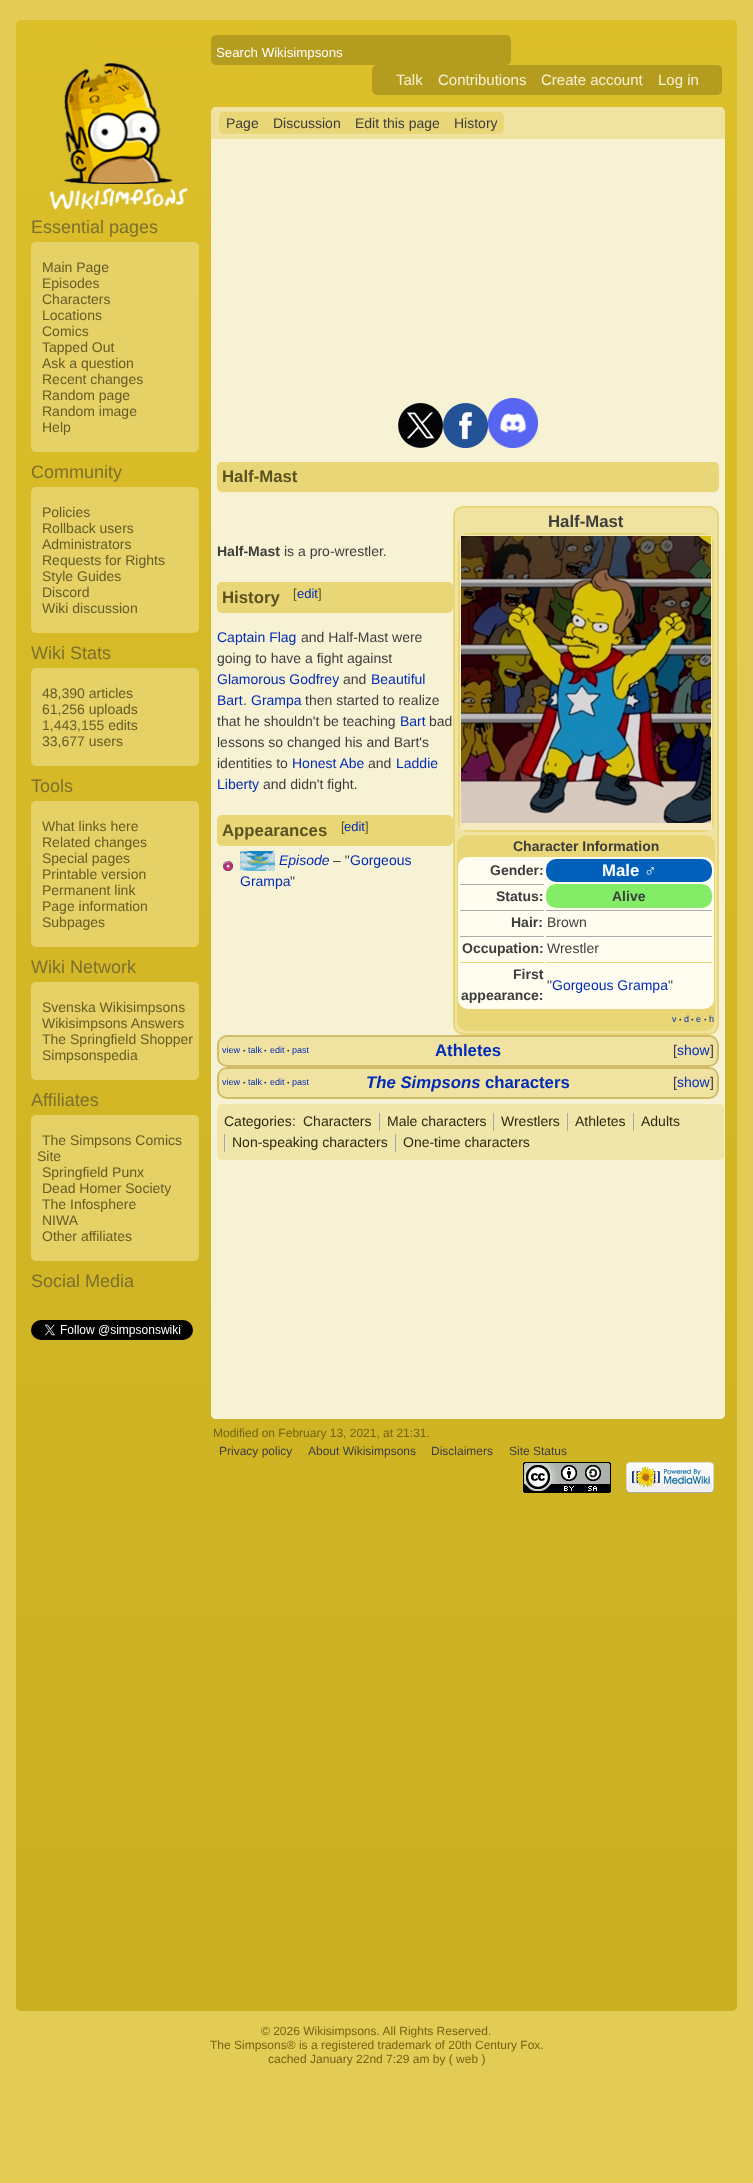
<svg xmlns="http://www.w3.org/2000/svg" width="753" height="2183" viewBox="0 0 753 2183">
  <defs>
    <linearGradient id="g1" gradientUnits="userSpaceOnUse" x1="376" y1="20" x2="377" y2="2011"><stop offset="0" stop-color="#dcbf29"/><stop offset="1" stop-color="#caaf21"/></linearGradient>
  </defs>
  <rect width="100%" height="100%" fill="#e3cc55"/>
  <rect x="16" y="20" width="721" height="1991" rx="5" fill="url(#g1)"/>
  <rect x="211" y="35" width="300" height="30" rx="5" fill="#b49c1e"/>
  <text x="216" y="57" font-family="Liberation Sans" font-size="13.25" fill="#ffffff">Search Wikisimpsons</text>
  <rect x="372" y="65" width="350" height="30" rx="5" fill="#b49c1e"/>
  <text x="396" y="85" font-family="Liberation Sans" font-size="15" fill="#f8f2d5">Talk</text>
  <text x="438" y="85" font-family="Liberation Sans" font-size="15" fill="#f8f2d5">Contributions</text>
  <text x="541" y="85" font-family="Liberation Sans" font-size="15" fill="#f8f2d5">Create account</text>
  <text x="658" y="85" font-family="Liberation Sans" font-size="15" fill="#f8f2d5">Log in</text>
  <image x="49" y="63" width="139" height="147" href="img1.png"/>
  <text x="31" y="233" font-family="Liberation Sans" font-size="18" fill="#7d702f">Essential pages</text>
  <rect x="31" y="242" width="168" height="210" rx="5" fill="#e6d166"/>
  <text x="42" y="272" font-family="Liberation Sans" font-size="14" fill="#665c26">Main Page</text>
  <text x="42" y="288" font-family="Liberation Sans" font-size="14" fill="#665c26">Episodes</text>
  <text x="42" y="304" font-family="Liberation Sans" font-size="14" fill="#665c26">Characters</text>
  <text x="42" y="320" font-family="Liberation Sans" font-size="14" fill="#665c26">Locations</text>
  <text x="42" y="336" font-family="Liberation Sans" font-size="14" fill="#665c26">Comics</text>
  <text x="42" y="352" font-family="Liberation Sans" font-size="14" fill="#665c26">Tapped Out</text>
  <text x="42" y="368" font-family="Liberation Sans" font-size="14" fill="#665c26">Ask a question</text>
  <text x="42" y="384" font-family="Liberation Sans" font-size="14" fill="#665c26">Recent changes</text>
  <text x="42" y="400" font-family="Liberation Sans" font-size="14" fill="#665c26">Random page</text>
  <text x="42" y="416" font-family="Liberation Sans" font-size="14" fill="#665c26">Random image</text>
  <text x="42" y="432" font-family="Liberation Sans" font-size="14" fill="#665c26">Help</text>
  <text x="31" y="478" font-family="Liberation Sans" font-size="18" fill="#7d702f">Community</text>
  <rect x="31" y="487" width="168" height="146" rx="5" fill="#e6d166"/>
  <text x="42" y="517" font-family="Liberation Sans" font-size="14" fill="#665c26">Policies</text>
  <text x="42" y="533" font-family="Liberation Sans" font-size="14" fill="#665c26">Rollback users</text>
  <text x="42" y="549" font-family="Liberation Sans" font-size="14" fill="#665c26">Administrators</text>
  <text x="42" y="565" font-family="Liberation Sans" font-size="14" fill="#665c26">Requests for Rights</text>
  <text x="42" y="581" font-family="Liberation Sans" font-size="14" fill="#665c26">Style Guides</text>
  <text x="42" y="597" font-family="Liberation Sans" font-size="14" fill="#665c26">Discord</text>
  <text x="42" y="613" font-family="Liberation Sans" font-size="14" fill="#665c26">Wiki discussion</text>
  <text x="31" y="659" font-family="Liberation Sans" font-size="18" fill="#7d702f">Wiki Stats</text>
  <rect x="31" y="668" width="168" height="98" rx="5" fill="#e6d166"/>
  <text x="42" y="698" font-family="Liberation Sans" font-size="14" fill="#665c26">48,390 articles</text>
  <text x="42" y="714" font-family="Liberation Sans" font-size="14" fill="#665c26">61,256 uploads</text>
  <text x="42" y="730" font-family="Liberation Sans" font-size="14" fill="#665c26">1,443,155 edits</text>
  <text x="42" y="746" font-family="Liberation Sans" font-size="14" fill="#665c26">33,677 users</text>
  <text x="31" y="792" font-family="Liberation Sans" font-size="18" fill="#7d702f">Tools</text>
  <rect x="31" y="801" width="168" height="146" rx="5" fill="#e6d166"/>
  <text x="42" y="831" font-family="Liberation Sans" font-size="14" fill="#665c26">What links here</text>
  <text x="42" y="847" font-family="Liberation Sans" font-size="14" fill="#665c26">Related changes</text>
  <text x="42" y="863" font-family="Liberation Sans" font-size="14" fill="#665c26">Special pages</text>
  <text x="42" y="879" font-family="Liberation Sans" font-size="14" fill="#665c26">Printable version</text>
  <text x="42" y="895" font-family="Liberation Sans" font-size="14" fill="#665c26">Permanent link</text>
  <text x="42" y="911" font-family="Liberation Sans" font-size="14" fill="#665c26">Page information</text>
  <text x="42" y="927" font-family="Liberation Sans" font-size="14" fill="#665c26">Subpages</text>
  <text x="31" y="973" font-family="Liberation Sans" font-size="18" fill="#7d702f">Wiki Network</text>
  <rect x="31" y="982" width="168" height="98" rx="5" fill="#e6d166"/>
  <text x="42" y="1012" font-family="Liberation Sans" font-size="14" fill="#665c26">Svenska Wikisimpsons</text>
  <text x="42" y="1028" font-family="Liberation Sans" font-size="14" fill="#665c26">Wikisimpsons Answers</text>
  <text x="42" y="1044" font-family="Liberation Sans" font-size="14" fill="#665c26">The Springfield Shopper</text>
  <text x="42" y="1060" font-family="Liberation Sans" font-size="14" fill="#665c26">Simpsonspedia</text>
  <text x="31" y="1106" font-family="Liberation Sans" font-size="18" fill="#7d702f">Affiliates</text>
  <rect x="31" y="1115" width="168" height="146" rx="5" fill="#e6d166"/>
  <text x="42" y="1145" font-family="Liberation Sans" font-size="14" fill="#665c26">The Simpsons Comics</text>
  <text x="37" y="1161" font-family="Liberation Sans" font-size="14" fill="#665c26">Site</text>
  <text x="42" y="1177" font-family="Liberation Sans" font-size="14" fill="#665c26">Springfield Punx</text>
  <text x="42" y="1193" font-family="Liberation Sans" font-size="14" fill="#665c26">Dead Homer Society</text>
  <text x="42" y="1209" font-family="Liberation Sans" font-size="14" fill="#665c26">The Infosphere</text>
  <text x="42" y="1225" font-family="Liberation Sans" font-size="14" fill="#665c26">NIWA</text>
  <text x="42" y="1241" font-family="Liberation Sans" font-size="14" fill="#665c26">Other affiliates</text>
  <text x="31" y="1287" font-family="Liberation Sans" font-size="18" fill="#7d702f">Social Media</text>
  <image x="31" y="1320" width="162" height="20" href="img2.png"/>
  <path d="M216 107H720C723 107 725 109 725 112V139H211V112C211 109 213 107 216 107Z" fill="#f0e3a2"/>
  <path d="M224 112H266V134H224C221 134 219 132 219 129V117C219 114 221 112 224 112Z" fill="#e9d677"/>
  <text x="226" y="128" font-family="Liberation Sans" font-size="14" fill="#3d3d3d">Page</text>
  <rect x="266" y="112" width="181" height="22" fill="#e9d677"/>
  <text x="273" y="128" font-family="Liberation Sans" font-size="14" fill="#3d3d3d">Discussion</text>
  <text x="355" y="128" font-family="Liberation Sans" font-size="14" fill="#3d3d3d">Edit this page</text>
  <path d="M447 112H499C502 112 504 114 504 117V129C504 132 502 134 499 134H447Z" fill="#e9d677"/>
  <text x="454" y="128" font-family="Liberation Sans" font-size="14" fill="#3d3d3d">History</text>
  <path d="M211 139H725V1414C725 1417 723 1419 720 1419H216C213 1419 211 1417 211 1414Z" fill="#f8f2d5"/>
  <image x="398" y="403" width="45" height="45" href="img3.png"/>
  <image x="443" y="403" width="45" height="45" href="img4.png"/>
  <image x="488" y="398" width="50" height="50" href="img5.png"/>
  <rect x="217" y="462" width="502" height="30" rx="5" fill="#e9d677"/>
  <text x="222" y="482" font-family="Liberation Sans" font-size="16.75" font-weight="bold" fill="#5b5222">Half-Mast</text>
  <text x="217" y="556" font-family="Liberation Sans" font-size="14" font-weight="bold" fill="#3d3d3d">Half-Mast</text>
  <text x="284" y="556" font-family="Liberation Sans" font-size="14" fill="#3d3d3d">is a pro-wrestler.</text>
  <rect x="454" y="507" width="264" height="527" rx="9" fill="#f0e3a2" stroke="#e9d677" stroke-width="2"/>
  <text x="548" y="527" font-family="Liberation Sans" font-size="16.75" font-weight="bold" fill="#3d3d3d">Half-Mast</text>
  <rect x="458" y="533" width="256" height="299" rx="10" fill="#e9d677"/>
  <rect x="460" y="535" width="252" height="295" fill="#f4eabd"/>
  <image x="461" y="536" width="250" height="287" href="img6.png"/>
  <rect x="457" y="835" width="258" height="196" rx="10" fill="#e9d677"/>
  <text x="513" y="851" font-family="Liberation Sans" font-size="14" font-weight="bold" fill="#3d3d3d">Character Information</text>
  <rect x="458" y="857" width="256" height="152" rx="10" fill="#fffdf0"/>
  <text x="490" y="875" font-family="Liberation Sans" font-size="14" font-weight="bold" fill="#3d3d3d">Gender:</text>
  <rect x="546" y="859" width="166" height="23" rx="10" fill="#0060ba"/>
  <text x="602" y="876" font-family="Liberation Sans" font-size="16.75" font-weight="bold" fill="#ffffff">Male ♂</text>
  <rect x="460" y="884" width="84" height="1" fill="#aaaaaa"/>
  <text x="496" y="901" font-family="Liberation Sans" font-size="14" font-weight="bold" fill="#3d3d3d">Status:</text>
  <rect x="546" y="884" width="166" height="24" rx="10" fill="#84ed68"/>
  <text x="612" y="901" font-family="Liberation Sans" font-size="14" font-weight="bold" fill="#3d3d3d">Alive</text>
  <rect x="460" y="910" width="84" height="1" fill="#aaaaaa"/>
  <text x="511" y="927" font-family="Liberation Sans" font-size="14" font-weight="bold" fill="#3d3d3d">Hair:</text>
  <rect x="546" y="910" width="166" height="1" fill="#aaaaaa"/>
  <text x="547" y="927" font-family="Liberation Sans" font-size="14" fill="#3d3d3d">Brown</text>
  <rect x="460" y="936" width="84" height="1" fill="#aaaaaa"/>
  <text x="462" y="953" font-family="Liberation Sans" font-size="14" font-weight="bold" fill="#3d3d3d">Occupation:</text>
  <rect x="546" y="936" width="166" height="1" fill="#aaaaaa"/>
  <text x="547" y="953" font-family="Liberation Sans" font-size="14" fill="#3d3d3d">Wrestler</text>
  <rect x="460" y="962" width="84" height="1" fill="#e9d677"/>
  <text x="513" y="979" font-family="Liberation Sans" font-size="14" font-weight="bold" fill="#3d3d3d">First</text>
  <text x="461" y="1000" font-family="Liberation Sans" font-size="14" font-weight="bold" fill="#3d3d3d">appearance:</text>
  <rect x="546" y="962" width="166" height="1" fill="#e9d677"/>
  <text x="547" y="990" font-family="Liberation Sans" font-size="14" fill="#3d3d3d">"</text>
  <text x="552" y="990" font-family="Liberation Sans" font-size="14" fill="#002bb8">Gorgeous Grampa</text>
  <text x="668" y="990" font-family="Liberation Sans" font-size="14" fill="#3d3d3d">"</text>
  <text x="672" y="1022" font-family="Liberation Sans" font-size="9" fill="#002bb8">v</text>
  <text x="679" y="1022" font-family="Liberation Sans" font-size="7" fill="#3d3d3d">•</text>
  <text x="684" y="1022" font-family="Liberation Sans" font-size="9" fill="#002bb8">d</text>
  <text x="691" y="1022" font-family="Liberation Sans" font-size="7" fill="#3d3d3d">•</text>
  <text x="696" y="1022" font-family="Liberation Sans" font-size="9" fill="#002bb8">e</text>
  <text x="704" y="1022" font-family="Liberation Sans" font-size="7" fill="#3d3d3d">•</text>
  <text x="709" y="1022" font-family="Liberation Sans" font-size="9" fill="#002bb8">h</text>
  <rect x="217" y="582" width="236" height="31" rx="5" fill="#e9d677"/>
  <text x="222" y="603" font-family="Liberation Sans" font-size="16.75" font-weight="bold" fill="#5b5222">History</text>
  <text x="293" y="598" font-family="Liberation Sans" font-size="13" fill="#5b5222">[</text>
  <text x="297" y="598" font-family="Liberation Sans" font-size="13" fill="#002bb8">edit</text>
  <text x="318" y="598" font-family="Liberation Sans" font-size="13" fill="#5b5222">]</text>
  <text x="217" y="642" font-family="Liberation Sans" font-size="14" fill="#002bb8">Captain Flag</text>
  <text x="301" y="642" font-family="Liberation Sans" font-size="14" fill="#3d3d3d">and Half-Mast were</text>
  <text x="217" y="663" font-family="Liberation Sans" font-size="14" fill="#3d3d3d">going to have a fight against</text>
  <text x="217" y="684" font-family="Liberation Sans" font-size="14" fill="#002bb8">Glamorous Godfrey</text>
  <text x="343" y="684" font-family="Liberation Sans" font-size="14" fill="#3d3d3d">and</text>
  <text x="371" y="684" font-family="Liberation Sans" font-size="14" fill="#002bb8">Beautiful</text>
  <text x="217" y="705" font-family="Liberation Sans" font-size="14" fill="#002bb8">Bart</text>
  <text x="243" y="705" font-family="Liberation Sans" font-size="14" fill="#3d3d3d">.</text>
  <text x="251" y="705" font-family="Liberation Sans" font-size="14" fill="#002bb8">Grampa</text>
  <text x="305" y="705" font-family="Liberation Sans" font-size="14" fill="#3d3d3d">then started to realize</text>
  <text x="217" y="726" font-family="Liberation Sans" font-size="14" fill="#3d3d3d">that he shouldn't be teaching</text>
  <text x="400" y="726" font-family="Liberation Sans" font-size="14" fill="#002bb8">Bart</text>
  <text x="429" y="726" font-family="Liberation Sans" font-size="14" fill="#3d3d3d">bad</text>
  <text x="217" y="747" font-family="Liberation Sans" font-size="14" fill="#3d3d3d">lessons so changed his and Bart's</text>
  <text x="217" y="768" font-family="Liberation Sans" font-size="14" fill="#3d3d3d">identities to</text>
  <text x="292" y="768" font-family="Liberation Sans" font-size="14" fill="#002bb8">Honest Abe</text>
  <text x="368" y="768" font-family="Liberation Sans" font-size="14" fill="#3d3d3d">and</text>
  <text x="396" y="768" font-family="Liberation Sans" font-size="14" fill="#002bb8">Laddie</text>
  <text x="217" y="789" font-family="Liberation Sans" font-size="14" fill="#002bb8">Liberty</text>
  <text x="263" y="789" font-family="Liberation Sans" font-size="14" fill="#3d3d3d">and didn't fight.</text>
  <rect x="217" y="815" width="236" height="31" rx="5" fill="#e9d677"/>
  <text x="222" y="836" font-family="Liberation Sans" font-size="16.75" font-weight="bold" fill="#5b5222">Appearances</text>
  <text x="341" y="831" font-family="Liberation Sans" font-size="13" fill="#5b5222">[</text>
  <text x="344" y="831" font-family="Liberation Sans" font-size="13" fill="#002bb8">edit</text>
  <text x="365" y="831" font-family="Liberation Sans" font-size="13" fill="#5b5222">]</text>
  <image x="223" y="861" width="10" height="10" href="img7.png"/>
  <image x="240" y="851" width="35" height="20" href="img8.png"/>
  <text x="279" y="865" font-family="Liberation Sans" font-size="14" font-style="italic" fill="#002bb8">Episode</text>
  <text x="333" y="865" font-family="Liberation Sans" font-size="14" fill="#3d3d3d">– "</text>
  <text x="350" y="865" font-family="Liberation Sans" font-size="14" fill="#002bb8">Gorgeous</text>
  <text x="240" y="886" font-family="Liberation Sans" font-size="14" fill="#002bb8">Grampa</text>
  <text x="290" y="886" font-family="Liberation Sans" font-size="14" fill="#3d3d3d">"</text>
  <rect x="218" y="1036" width="500" height="30" rx="9" fill="#f0e3a2" stroke="#d1bd67" stroke-width="2"/>
  <rect x="221" y="1039" width="494" height="24" fill="#f0e3a2"/>
  <text x="222" y="1053" font-family="Liberation Sans" font-size="9" fill="#002bb8">view</text>
  <text x="243" y="1053" font-family="Liberation Sans" font-size="7" fill="#3d3d3d">•</text>
  <text x="248" y="1053" font-family="Liberation Sans" font-size="9" fill="#002bb8">talk</text>
  <text x="264" y="1053" font-family="Liberation Sans" font-size="7" fill="#3d3d3d">•</text>
  <text x="270" y="1053" font-family="Liberation Sans" font-size="9" fill="#002bb8">edit</text>
  <text x="287" y="1053" font-family="Liberation Sans" font-size="7" fill="#3d3d3d">•</text>
  <text x="292" y="1053" font-family="Liberation Sans" font-size="9" fill="#002bb8">past</text>
  <text x="435" y="1056" font-family="Liberation Sans" font-size="16.75" font-weight="bold" fill="#002bb8">Athletes</text>
  <text x="673" y="1055" font-family="Liberation Sans" font-size="14" fill="#3d3d3d">[</text>
  <text x="677" y="1055" font-family="Liberation Sans" font-size="14" fill="#002bb8">show</text>
  <text x="710" y="1055" font-family="Liberation Sans" font-size="14" fill="#3d3d3d">]</text>
  <rect x="218" y="1068" width="500" height="30" rx="9" fill="#f0e3a2" stroke="#d1bd67" stroke-width="2"/>
  <rect x="221" y="1071" width="494" height="24" fill="#f0e3a2"/>
  <text x="222" y="1085" font-family="Liberation Sans" font-size="9" fill="#002bb8">view</text>
  <text x="243" y="1085" font-family="Liberation Sans" font-size="7" fill="#3d3d3d">•</text>
  <text x="248" y="1085" font-family="Liberation Sans" font-size="9" fill="#002bb8">talk</text>
  <text x="264" y="1085" font-family="Liberation Sans" font-size="7" fill="#3d3d3d">•</text>
  <text x="270" y="1085" font-family="Liberation Sans" font-size="9" fill="#002bb8">edit</text>
  <text x="287" y="1085" font-family="Liberation Sans" font-size="7" fill="#3d3d3d">•</text>
  <text x="292" y="1085" font-family="Liberation Sans" font-size="9" fill="#002bb8">past</text>
  <text x="366" y="1088" font-family="Liberation Sans" font-size="16.75" font-weight="bold" font-style="italic" fill="#002bb8">The Simpsons</text>
  <text x="485" y="1088" font-family="Liberation Sans" font-size="16.75" font-weight="bold" fill="#002bb8">characters</text>
  <text x="673" y="1087" font-family="Liberation Sans" font-size="14" fill="#3d3d3d">[</text>
  <text x="677" y="1087" font-family="Liberation Sans" font-size="14" fill="#002bb8">show</text>
  <text x="710" y="1087" font-family="Liberation Sans" font-size="14" fill="#3d3d3d">]</text>
  <rect x="217" y="1104" width="507" height="56" rx="5" fill="#f1e6aa"/>
  <text x="224" y="1126" font-family="Liberation Sans" font-size="14" fill="#2d2911">Categories</text>
  <text x="303" y="1126" font-family="Liberation Sans" font-size="14" fill="#2d2911">Characters</text>
  <rect x="379" y="1113" width="1" height="18" fill="#a2a9b1"/>
  <text x="387" y="1126" font-family="Liberation Sans" font-size="14" fill="#2d2911">Male characters</text>
  <rect x="493" y="1113" width="1" height="18" fill="#a2a9b1"/>
  <text x="501" y="1126" font-family="Liberation Sans" font-size="14" fill="#2d2911">Wrestlers</text>
  <rect x="567" y="1113" width="1" height="18" fill="#a2a9b1"/>
  <text x="575" y="1126" font-family="Liberation Sans" font-size="14" fill="#2d2911">Athletes</text>
  <rect x="633" y="1113" width="1" height="18" fill="#a2a9b1"/>
  <text x="641" y="1126" font-family="Liberation Sans" font-size="14" fill="#2d2911">Adults</text>
  <rect x="224" y="1134" width="1" height="18" fill="#a2a9b1"/>
  <text x="232" y="1147" font-family="Liberation Sans" font-size="14" fill="#2d2911">Non-speaking characters</text>
  <rect x="395" y="1134" width="1" height="18" fill="#a2a9b1"/>
  <text x="403" y="1147" font-family="Liberation Sans" font-size="14" fill="#2d2911">One-time characters</text>
  <text x="292" y="1126" font-family="Liberation Sans" font-size="14" fill="#3d3d3d">:</text>
  <text x="213" y="1437" font-family="Liberation Sans" font-size="12" fill="#736313">Modified on February 13, 2021, at 21:31.</text>
  <text x="219" y="1455" font-family="Liberation Sans" font-size="12" fill="#3d3d3d">Privacy policy</text>
  <text x="308" y="1455" font-family="Liberation Sans" font-size="12" fill="#3d3d3d">About Wikisimpsons</text>
  <text x="431" y="1455" font-family="Liberation Sans" font-size="12" fill="#3d3d3d">Disclaimers</text>
  <text x="509" y="1455" font-family="Liberation Sans" font-size="12" fill="#3d3d3d">Site Status</text>
  <image x="523" y="1462" width="88" height="31" href="img9.png"/>
  <image x="626" y="1462" width="88" height="31" href="img10.png"/>
  <text x="261" y="2035" font-family="Liberation Sans" font-size="12" fill="#736313">© 2026 Wikisimpsons. All Rights Reserved.</text>
  <text x="210" y="2049" font-family="Liberation Sans" font-size="12" fill="#736313">The Simpsons® is a registered trademark of 20th Century Fox.</text>
  <text x="268" y="2063" font-family="Liberation Sans" font-size="12" fill="#736313">cached January 22nd 7:29 am by ( web )</text>
</svg>
